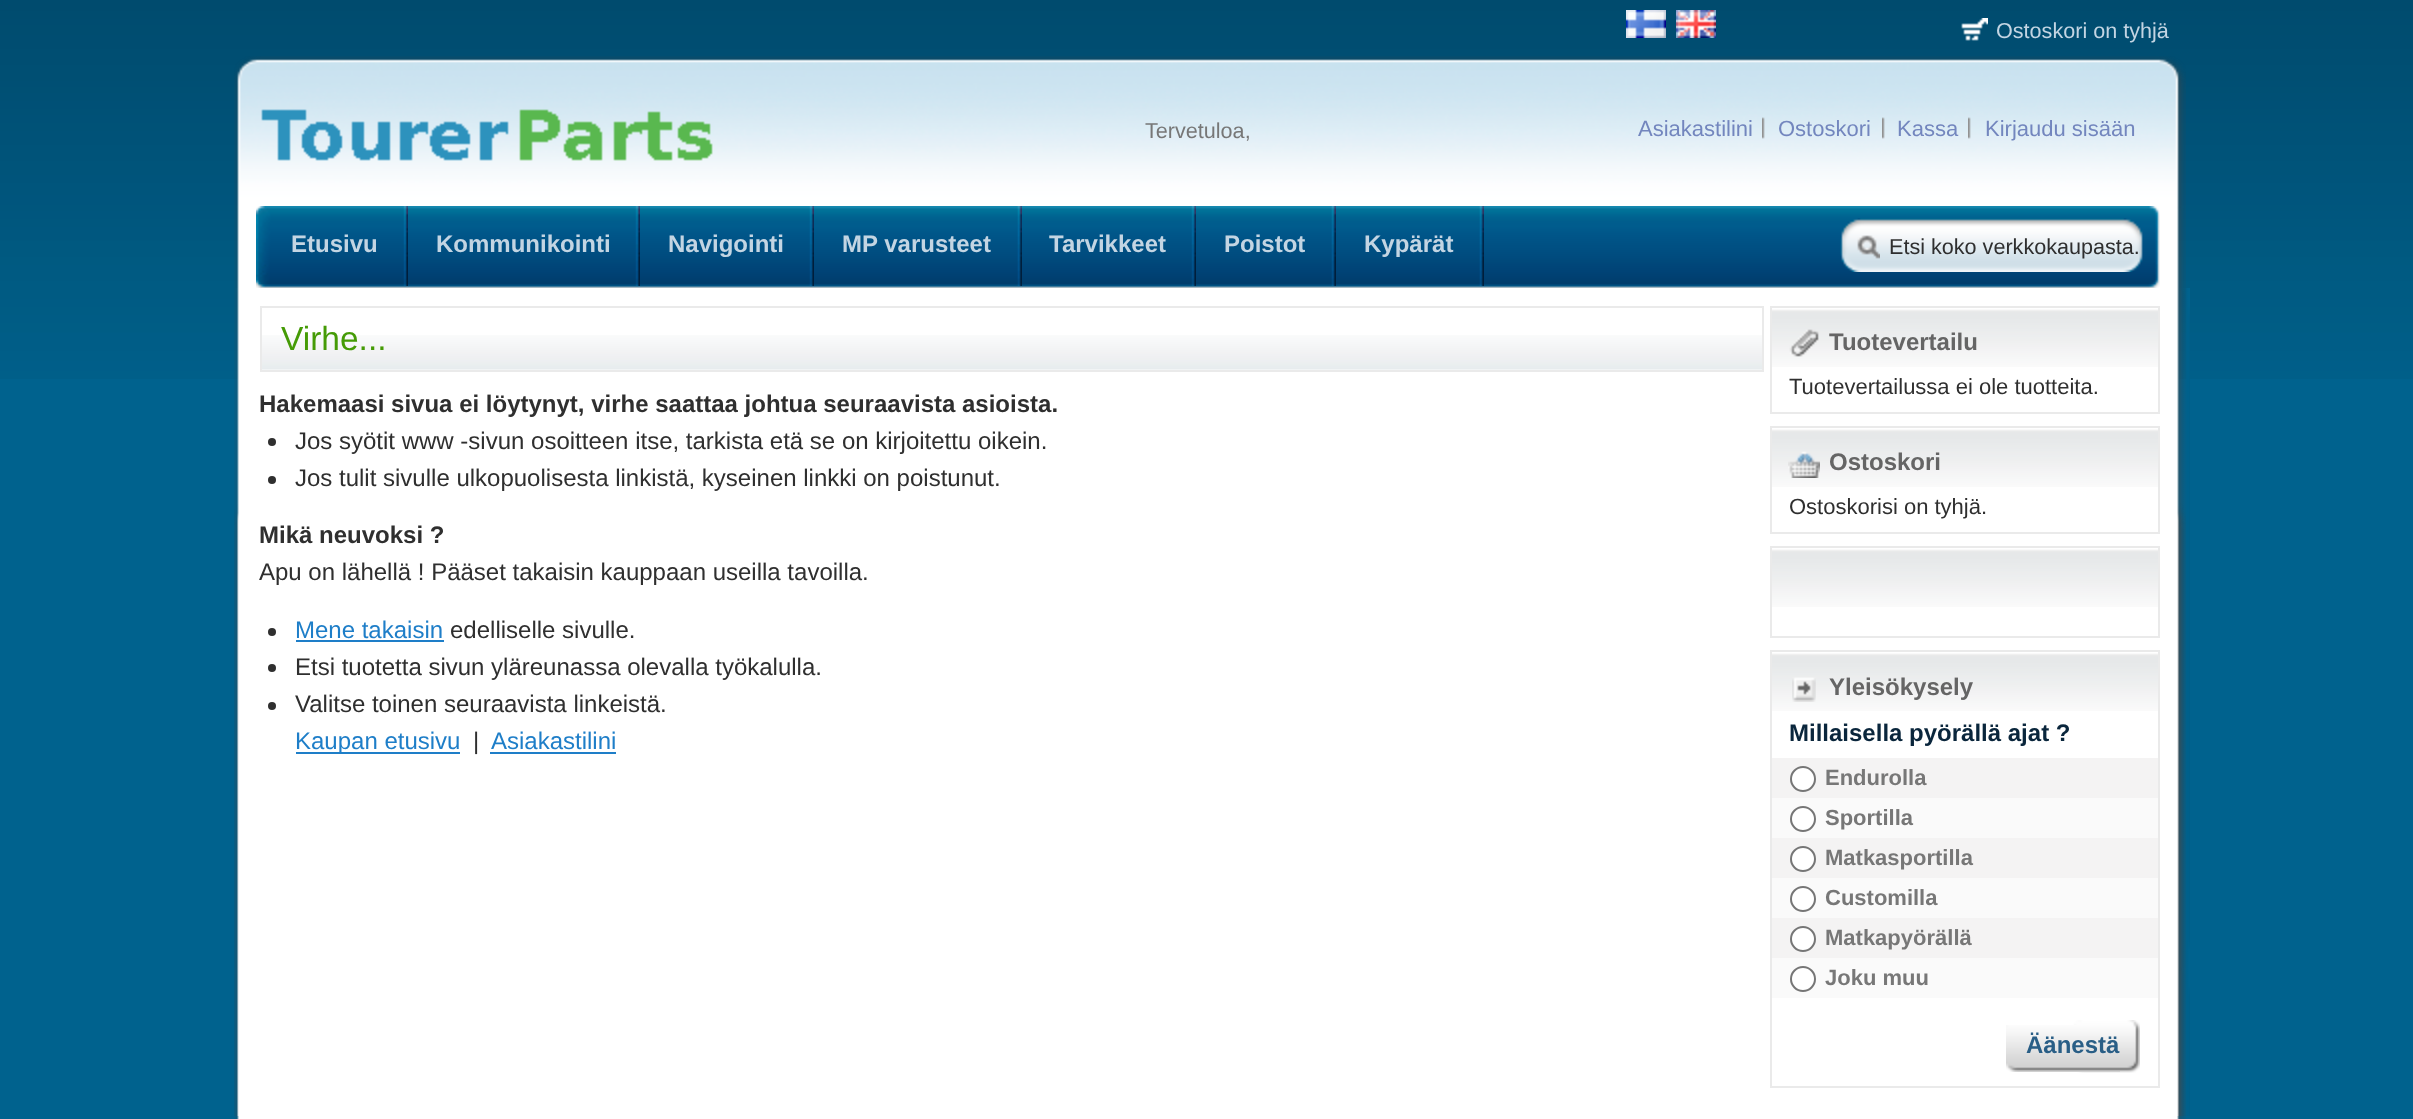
<svg xmlns="http://www.w3.org/2000/svg" width="2413" height="1119" viewBox="0 0 2413 1119">
  <rect width="100%" height="100%" fill="#00628e"/>
  <image x="0" y="0" width="2413" height="379" href="img1.png"/>
  <image x="234" y="206" width="1952" height="82" href="img2.png"/>
  <image x="256" y="206" width="1904" height="82" href="img3.png"/>
  <image x="403" y="206" width="5" height="80" href="img4.png"/>
  <text x="291" y="252" font-family="Liberation Sans" font-size="24" font-weight="bold" fill="#c3d5e3">Etusivu</text>
  <image x="635" y="206" width="5" height="80" href="img4.png"/>
  <text x="436" y="252" font-family="Liberation Sans" font-size="24" font-weight="bold" fill="#c3d5e3">Kommunikointi</text>
  <image x="809" y="206" width="5" height="80" href="img4.png"/>
  <text x="668" y="252" font-family="Liberation Sans" font-size="24" font-weight="bold" fill="#c3d5e3">Navigointi</text>
  <image x="1017" y="206" width="5" height="80" href="img5.png"/>
  <text x="842" y="252" font-family="Liberation Sans" font-size="24" font-weight="bold" fill="#c3d5e3">MP varusteet</text>
  <image x="1191" y="206" width="5" height="80" href="img4.png"/>
  <text x="1049" y="252" font-family="Liberation Sans" font-size="24" font-weight="bold" fill="#c3d5e3">Tarvikkeet</text>
  <image x="1331" y="206" width="5" height="80" href="img5.png"/>
  <text x="1224" y="252" font-family="Liberation Sans" font-size="24" font-weight="bold" fill="#c3d5e3">Poistot</text>
  <image x="1479" y="206" width="5" height="80" href="img5.png"/>
  <text x="1364" y="252" font-family="Liberation Sans" font-size="24" font-weight="bold" fill="#c3d5e3">Kypärät</text>
  <image x="234" y="56" width="1952" height="150" href="img6.png"/>
  <image x="1626" y="10" width="40" height="28" href="img7.png"/>
  <image x="1676" y="10" width="40" height="28" href="img8.png"/>
  <image x="1961" y="18" width="27" height="23" href="img9.png"/>
  <text x="1996" y="38" font-family="Liberation Sans" font-size="21.6" fill="#c3d5e3">Ostoskori on tyhjä</text>
  <image x="261" y="109" width="452" height="52" href="img10.png"/>
  <text x="1145" y="138" font-family="Liberation Sans" font-size="21.6" fill="#777777">Tervetuloa,</text>
  <text x="1638" y="136" font-family="Liberation Sans" font-size="22" fill="#7386be">Asiakastilini</text>
  <image x="1762" y="117" width="3" height="22" href="img11.png"/>
  <text x="1778" y="136" font-family="Liberation Sans" font-size="22" fill="#7386be">Ostoskori</text>
  <image x="1882" y="117" width="3" height="22" href="img12.png"/>
  <text x="1897" y="136" font-family="Liberation Sans" font-size="22" fill="#7386be">Kassa</text>
  <image x="1968" y="117" width="3" height="22" href="img13.png"/>
  <text x="1985" y="136" font-family="Liberation Sans" font-size="22" fill="#7386be">Kirjaudu sisään</text>
  <image x="1840" y="218" width="303" height="54" href="img14.png"/>
  <image x="1857" y="235" width="23" height="24" href="img15.png"/>
  <text x="1889" y="254" font-family="Liberation Sans" font-size="21.6" fill="#2f2f2f">Etsi koko verkkokaupasta.</text>
  <image x="234" y="503" width="1952" height="616" href="img16.png"/>
  <image x="234" y="288" width="1956" height="828" href="img17.png"/>
  <image x="262" y="335" width="1500" height="35" href="img18.png"/>
  <rect x="261" y="307" width="1502" height="64" fill="none" stroke="#eaeaea" stroke-width="2"/>
  <text x="281" y="350" font-family="Liberation Sans" font-size="33.5" fill="#459b06">Virhe...</text>
  <text x="259" y="412" font-family="Liberation Sans" font-size="24" font-weight="bold" fill="#2f2f2f">Hakemaasi sivua ei löytynyt, virhe saattaa johtua seuraavista asioista.</text>
  <circle cx="272" cy="442" r="4" fill="#2f2f2f"/>
  <text x="295" y="449" font-family="Liberation Sans" font-size="24" fill="#2f2f2f">Jos syötit www -sivun osoitteen itse, tarkista etä se on kirjoitettu oikein.</text>
  <circle cx="272" cy="480" r="4" fill="#2f2f2f"/>
  <text x="295" y="486" font-family="Liberation Sans" font-size="24" fill="#2f2f2f">Jos tulit sivulle ulkopuolisesta linkistä, kyseinen linkki on poistunut.</text>
  <text x="259" y="543" font-family="Liberation Sans" font-size="24" font-weight="bold" fill="#2f2f2f">Mikä neuvoksi ?</text>
  <text x="259" y="580" font-family="Liberation Sans" font-size="24" fill="#2f2f2f">Apu on lähellä ! Pääset takaisin kauppaan useilla tavoilla.</text>
  <circle cx="272" cy="632" r="4" fill="#2f2f2f"/>
  <text x="295" y="638" font-family="Liberation Sans" font-size="24" fill="#1e7ec8">Mene takaisin</text>
  <rect x="296" y="640" width="148" height="2" fill="#1e7ec8"/>
  <text x="450" y="638" font-family="Liberation Sans" font-size="24" fill="#2f2f2f">edelliselle sivulle.</text>
  <circle cx="272" cy="668" r="4" fill="#2f2f2f"/>
  <text x="295" y="675" font-family="Liberation Sans" font-size="24" fill="#2f2f2f">Etsi tuotetta sivun yläreunassa olevalla työkalulla.</text>
  <circle cx="272" cy="706" r="4" fill="#2f2f2f"/>
  <text x="295" y="712" font-family="Liberation Sans" font-size="24" fill="#2f2f2f">Valitse toinen seuraavista linkeistä.</text>
  <rect x="296" y="752" width="164" height="2" fill="#1e7ec8"/>
  <text x="295" y="749" font-family="Liberation Sans" font-size="24" fill="#1e7ec8">Kaupan etusivu</text>
  <text x="473" y="749" font-family="Liberation Sans" font-size="24" fill="#2f2f2f">|</text>
  <text x="491" y="749" font-family="Liberation Sans" font-size="24" fill="#1e7ec8">Asiakastilini</text>
  <rect x="490" y="752" width="126" height="2" fill="#1e7ec8"/>
  <image x="1772" y="309" width="386" height="58" href="img19.png"/>
  <rect x="1771" y="307" width="388" height="106" fill="none" stroke="#eaeaea" stroke-width="2"/>
  <image x="1789" y="329" width="30" height="28" href="img20.png"/>
  <text x="1829" y="350" font-family="Liberation Sans" font-size="24" font-weight="bold" fill="#656565">Tuotevertailu</text>
  <text x="1789" y="394" font-family="Liberation Sans" font-size="22" fill="#2f2f2f">Tuotevertailussa ei ole tuotteita.</text>
  <image x="1772" y="429" width="386" height="58" href="img19.png"/>
  <rect x="1771" y="427" width="388" height="106" fill="none" stroke="#eaeaea" stroke-width="2"/>
  <image x="1788" y="451" width="32" height="27" href="img21.png"/>
  <text x="1829" y="470" font-family="Liberation Sans" font-size="24" font-weight="bold" fill="#656565">Ostoskori</text>
  <text x="1789" y="514" font-family="Liberation Sans" font-size="22" fill="#2f2f2f">Ostoskorisi on tyhjä.</text>
  <image x="1772" y="549" width="386" height="58" href="img19.png"/>
  <rect x="1771" y="547" width="388" height="90" fill="none" stroke="#eaeaea" stroke-width="2"/>
  <image x="1772" y="653" width="386" height="58" href="img19.png"/>
  <rect x="1771" y="651" width="388" height="436" fill="none" stroke="#eaeaea" stroke-width="2"/>
  <image x="1792" y="677" width="24" height="25" href="img22.png"/>
  <text x="1829" y="695" font-family="Liberation Sans" font-size="24" font-weight="bold" fill="#656565">Yleisökysely</text>
  <text x="1789" y="741" font-family="Liberation Sans" font-size="24" font-weight="bold" fill="#0a263c">Millaisella pyörällä ajat ?</text>
  <rect x="1772" y="758" width="386" height="40" fill="#f4f3f3"/>
  <circle cx="1803" cy="779" r="12" fill="#ffffff" stroke="#767676" stroke-width="2"/>
  <text x="1825" y="785" font-family="Liberation Sans" font-size="22" font-weight="bold" fill="#777777">Endurolla</text>
  <rect x="1772" y="798" width="386" height="40" fill="#fafafa"/>
  <circle cx="1803" cy="819" r="12" fill="#ffffff" stroke="#767676" stroke-width="2"/>
  <text x="1825" y="825" font-family="Liberation Sans" font-size="22" font-weight="bold" fill="#777777">Sportilla</text>
  <rect x="1772" y="838" width="386" height="40" fill="#f4f3f3"/>
  <circle cx="1803" cy="859" r="12" fill="#ffffff" stroke="#767676" stroke-width="2"/>
  <text x="1825" y="865" font-family="Liberation Sans" font-size="22" font-weight="bold" fill="#777777">Matkasportilla</text>
  <rect x="1772" y="878" width="386" height="40" fill="#fafafa"/>
  <circle cx="1803" cy="899" r="12" fill="#ffffff" stroke="#767676" stroke-width="2"/>
  <text x="1825" y="905" font-family="Liberation Sans" font-size="22" font-weight="bold" fill="#777777">Customilla</text>
  <rect x="1772" y="918" width="386" height="40" fill="#f4f3f3"/>
  <circle cx="1803" cy="939" r="12" fill="#ffffff" stroke="#767676" stroke-width="2"/>
  <text x="1825" y="945" font-family="Liberation Sans" font-size="22" font-weight="bold" fill="#777777">Matkapyörällä</text>
  <rect x="1772" y="958" width="386" height="40" fill="#fafafa"/>
  <circle cx="1803" cy="979" r="12" fill="#ffffff" stroke="#767676" stroke-width="2"/>
  <text x="1825" y="985" font-family="Liberation Sans" font-size="22" font-weight="bold" fill="#777777">Joku muu</text>
  <image x="2073" y="1020" width="67" height="53" href="img23.png"/>
  <image x="2006" y="1025" width="114" height="47" href="img24.png"/>
  <text x="2026" y="1053" font-family="Liberation Sans" font-size="24" font-weight="bold" fill="#295e86">Äänestä</text>
</svg>
